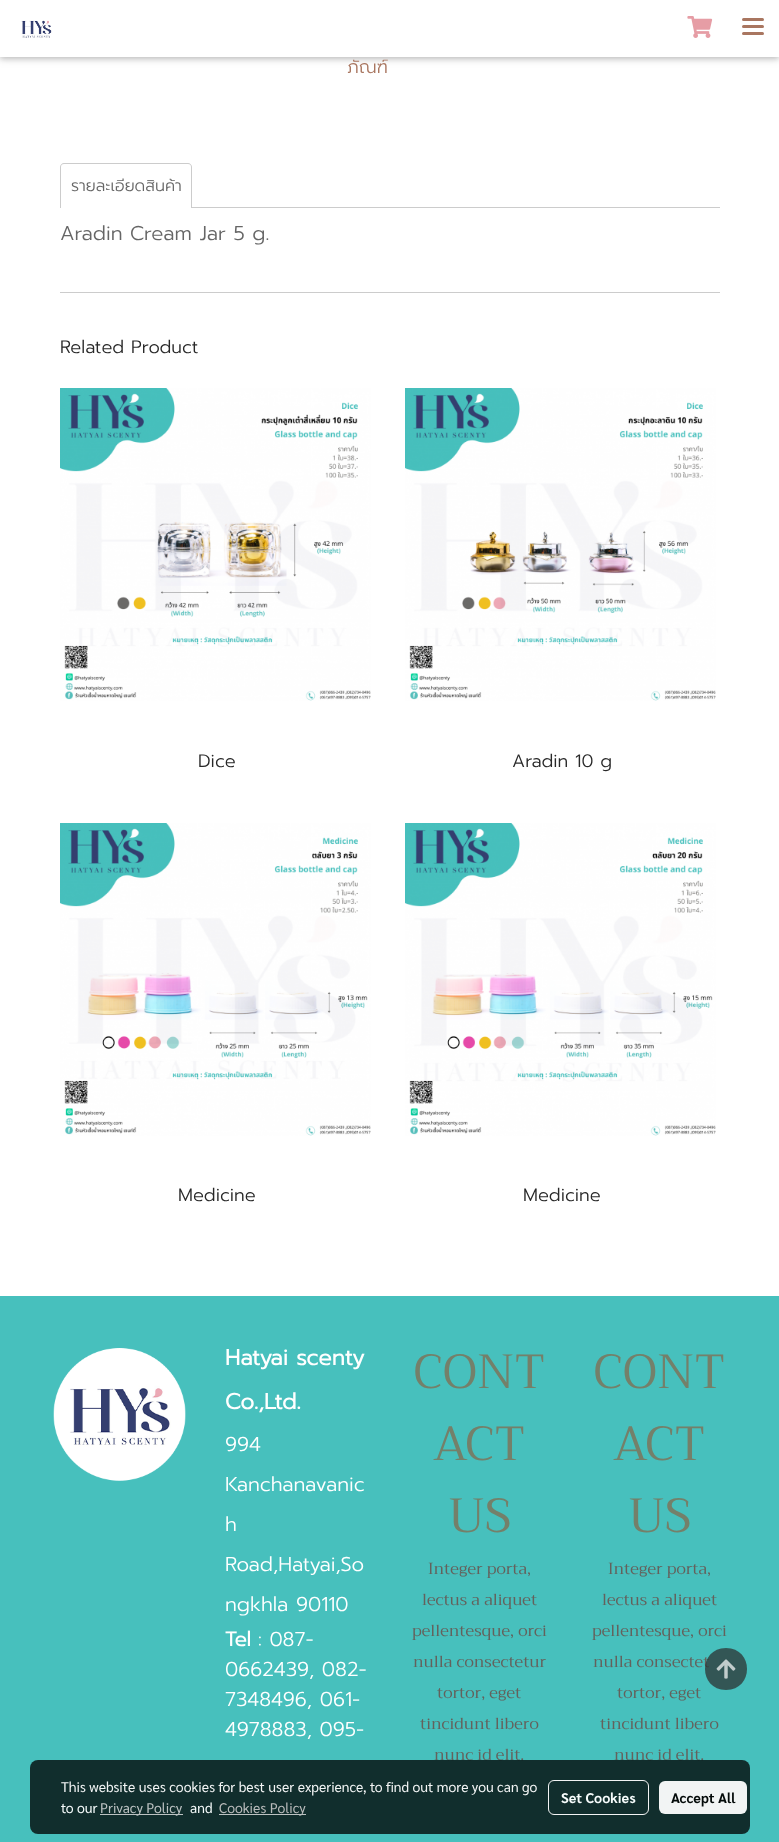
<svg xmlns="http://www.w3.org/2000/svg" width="779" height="1842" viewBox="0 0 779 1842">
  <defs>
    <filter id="blur1" x="-50%" y="-200%" width="200%" height="500%"><feGaussianBlur stdDeviation="5"/></filter>
    <filter id="blur2" x="-50%" y="-200%" width="200%" height="500%"><feGaussianBlur stdDeviation="2.5"/></filter>
  </defs>
  <rect width="100%" height="100%" fill="#ffffff"/>
  <rect x="0" y="2" width="779" height="57" fill="#000000" fill-opacity="0.12" filter="url(#blur1)"/>
  <rect x="0" y="2" width="779" height="57" fill="#000000" fill-opacity="0.16" filter="url(#blur2)"/>
  <rect x="0" y="0" width="779" height="57" fill="#ffffff"/>
  <image x="21" y="20" width="31" height="18" href="img1.png"/>
  <image x="687" y="16" width="26" height="22" href="img2.png"/>
  <rect x="742" y="25" width="22" height="3" rx="1.5" fill="#a97660"/>
  <rect x="742" y="18" width="22" height="3" rx="1.5" fill="#a97660"/>
  <rect x="742" y="32" width="22" height="3" rx="1.5" fill="#a97660"/>
  <text x="347" y="73" font-family="Prompt" font-size="18" font-weight="300" fill="#a97660">ภัณฑ์</text>
  <path d="M64 163H188C190 163 192 165 192 167V208H60V167C60 165 62 163 64 163ZM64 164H188C190 164 191 165 191 167V208H61V167C61 165 62 164 64 164Z" fill="#cccccc" fill-rule="evenodd"/>
  <text x="71" y="191" font-family="Prompt" font-size="16" font-weight="300" fill="#666666">รายละเอียดสินค้า</text>
  <rect x="192" y="207" width="528" height="1" fill="#cccccc"/>
  <text x="60" y="240" font-family="Prompt" font-size="20" font-weight="300" fill="#666666">Aradin Cream Jar 5 g.</text>
  <rect x="60" y="292" width="660" height="1" fill="#cccccc"/>
  <text x="60" y="353" font-family="Prompt" font-size="18" font-weight="300" fill="#282828">Related Product</text>
  <image x="60" y="388" width="311" height="313" href="img3.png"/>
  <text x="198" y="767" font-family="Prompt" font-size="18" font-weight="300" fill="#282828">Dice</text>
  <image x="405" y="388" width="311" height="313" href="img4.png"/>
  <text x="512" y="767" font-family="Prompt" font-size="18" font-weight="300" fill="#282828">Aradin 10 g</text>
  <image x="60" y="823" width="311" height="313" href="img5.png"/>
  <text x="178" y="1201" font-family="Prompt" font-size="18" font-weight="300" fill="#282828">Medicine</text>
  <image x="405" y="823" width="311" height="313" href="img6.png"/>
  <text x="523" y="1201" font-family="Prompt" font-size="18" font-weight="300" fill="#282828">Medicine</text>
  <rect x="0" y="1296" width="779" height="546" fill="#47c0bd"/>
  <image x="53" y="1348" width="133" height="133" href="img7.png"/>
  <text x="225" y="1365" font-family="Prompt" font-size="22" font-weight="bold" fill="#ffffff">Hatyai scenty</text>
  <text x="225" y="1409" font-family="Prompt" font-size="22" font-weight="bold" fill="#ffffff">Co.,Ltd.</text>
  <text x="225" y="1451" font-family="Prompt" font-size="20" font-weight="300" fill="#ffffff">994</text>
  <text x="225" y="1491" font-family="Prompt" font-size="20" font-weight="300" fill="#ffffff">Kanchanavanic</text>
  <text x="225" y="1531" font-family="Prompt" font-size="20" font-weight="300" fill="#ffffff">h</text>
  <text x="225" y="1571" font-family="Prompt" font-size="20" font-weight="300" fill="#ffffff">Road,Hatyai,So</text>
  <text x="225" y="1611" font-family="Prompt" font-size="20" font-weight="300" fill="#ffffff">ngkhla 90110</text>
  <text x="225" y="1646" font-family="Prompt" font-size="20" font-weight="bold" fill="#ffffff">Tel</text>
  <text x="258" y="1646" font-family="Prompt" font-size="20" font-weight="300" fill="#ffffff">: 087-</text>
  <text x="225" y="1676" font-family="Prompt" font-size="20" font-weight="300" fill="#ffffff">0662439, 082-</text>
  <text x="225" y="1706" font-family="Prompt" font-size="20" font-weight="300" fill="#ffffff">7348496, 061-</text>
  <text x="225" y="1736" font-family="Prompt" font-size="20" font-weight="300" fill="#ffffff">4978883, 095-</text>
  <text x="413" y="1388" font-family="Trirong" font-size="48" fill="#74806a">CONT</text>
  <text x="433" y="1460" font-family="Trirong" font-size="48" fill="#74806a">ACT</text>
  <text x="448" y="1532" font-family="Trirong" font-size="48" fill="#74806a">US</text>
  <text x="428" y="1574" font-family="Trirong" font-size="16" fill="#64615c">Integer porta,</text>
  <text x="422" y="1605" font-family="Trirong" font-size="16" fill="#64615c">lectus a aliquet</text>
  <text x="412" y="1636" font-family="Trirong" font-size="16" fill="#64615c">pellentesque, orci</text>
  <text x="413" y="1667" font-family="Trirong" font-size="16" fill="#64615c">nulla consectetur</text>
  <text x="437" y="1698" font-family="Trirong" font-size="16" fill="#64615c">tortor, eget</text>
  <text x="420" y="1729" font-family="Trirong" font-size="16" fill="#64615c">tincidunt libero</text>
  <text x="434" y="1760" font-family="Trirong" font-size="16" fill="#64615c">nunc id elit.</text>
  <text x="593" y="1388" font-family="Trirong" font-size="48" fill="#74806a">CONT</text>
  <text x="613" y="1460" font-family="Trirong" font-size="48" fill="#74806a">ACT</text>
  <text x="628" y="1532" font-family="Trirong" font-size="48" fill="#74806a">US</text>
  <text x="608" y="1574" font-family="Trirong" font-size="16" fill="#64615c">Integer porta,</text>
  <text x="602" y="1605" font-family="Trirong" font-size="16" fill="#64615c">lectus a aliquet</text>
  <text x="592" y="1636" font-family="Trirong" font-size="16" fill="#64615c">pellentesque, orci</text>
  <text x="593" y="1667" font-family="Trirong" font-size="16" fill="#64615c">nulla consectet</text>
  <text x="617" y="1698" font-family="Trirong" font-size="16" fill="#64615c">tortor, eget</text>
  <text x="600" y="1729" font-family="Trirong" font-size="16" fill="#64615c">tincidunt libero</text>
  <text x="614" y="1760" font-family="Trirong" font-size="16" fill="#64615c">nunc id elit.</text>
  <path d="M726 1648C698 1648 698 1690 726 1690C754 1690 754 1648 726 1648Z" fill="#2b2a2a" fill-opacity="0.7"/>
  <image x="716" y="1659" width="20" height="20" href="img8.png"/>
  <rect x="30" y="1760" width="720" height="74" rx="8" fill="#000000" fill-opacity="0.76"/>
  <text x="61" y="1792" font-family="Sarabun" font-size="14" fill="#f3f5f5">This website uses cookies for best user experience, to find out more you can go</text>
  <text x="61" y="1813" font-family="Sarabun" font-size="14" fill="#f6fcfc">to our</text>
  <rect x="100" y="1814" width="83" height="1" fill="#bcc2c2"/>
  <text x="100" y="1813" font-family="Sarabun" font-size="14" fill="#bcc2c2">Privacy Policy</text>
  <text x="190" y="1813" font-family="Sarabun" font-size="14" fill="#f6fcfc">and</text>
  <rect x="219" y="1814" width="87" height="1" fill="#bcc2c2"/>
  <text x="219" y="1813" font-family="Sarabun" font-size="14" fill="#b9bbbb">Cookies Policy</text>
  <rect x="548.5" y="1780.5" width="100" height="34" rx="5.5" fill="none" stroke="#ffffff" stroke-opacity="0.95"/>
  <text x="561" y="1803" font-family="Sarabun" font-size="14" font-weight="bold" fill="#f6fcfc">Set Cookies</text>
  <rect x="659" y="1781" width="88" height="33" rx="6" fill="#ffffff" fill-opacity="0.95"/>
  <text x="671" y="1803" font-family="Sarabun" font-size="14" font-weight="bold" fill="#040a09">Accept All</text>
</svg>
